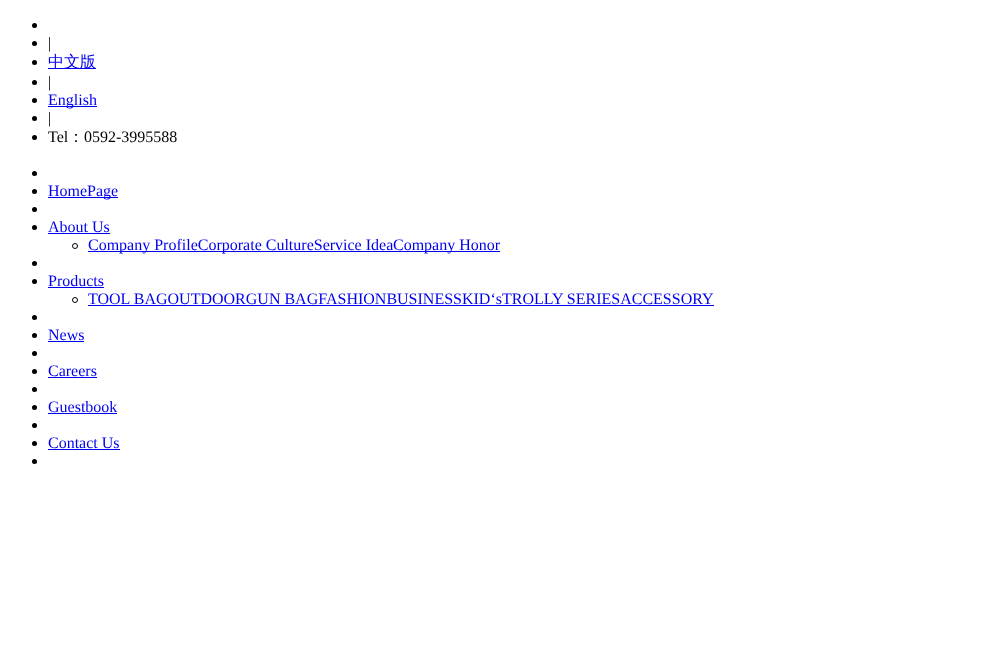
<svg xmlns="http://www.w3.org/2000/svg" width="984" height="646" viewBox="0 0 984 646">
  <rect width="100%" height="100%" fill="#ffffff"/>
  <circle cx="34.5" cy="25.5" r="2.5" fill="#000000"/>
  <circle cx="34.5" cy="43.5" r="2.5" fill="#000000"/>
  <text x="48" y="48" font-family="Liberation Serif" font-size="16" fill="#000000">|</text>
  <circle cx="34.5" cy="62.5" r="2.5" fill="#000000"/>
  <rect x="48" y="68" width="48" height="1" fill="#0000ee"/>
  <text x="48" y="67" font-family="WenQuanYi Zen Hei" font-size="16" font-weight="500" fill="#0000ee">中文版</text>
  <circle cx="34.5" cy="82.5" r="2.5" fill="#000000"/>
  <text x="48" y="87" font-family="Liberation Serif" font-size="16" fill="#000000">|</text>
  <circle cx="34.5" cy="100.5" r="2.5" fill="#000000"/>
  <rect x="48" y="106" width="49" height="1" fill="#0000ee"/>
  <text x="48" y="105" font-family="Liberation Serif" font-size="16" fill="#0000ee">English</text>
  <circle cx="34.5" cy="118.5" r="2.5" fill="#000000"/>
  <text x="48" y="123" font-family="Liberation Serif" font-size="16" fill="#000000">|</text>
  <circle cx="34.5" cy="137.5" r="2.5" fill="#000000"/>
  <text x="48" y="142" font-family="Liberation Serif" font-size="16" fill="#000000">Tel</text>
  <text x="68" y="142" font-family="WenQuanYi Zen Hei" font-size="16" font-weight="500" fill="#000000">：</text>
  <text x="84" y="142" font-family="Liberation Serif" font-size="16" fill="#000000">0592-3995588</text>
  <circle cx="34.5" cy="173.5" r="2.5" fill="#000000"/>
  <circle cx="34.5" cy="191.5" r="2.5" fill="#000000"/>
  <rect x="48" y="197" width="70" height="1" fill="#0000ee"/>
  <text x="48" y="196" font-family="Liberation Serif" font-size="16" fill="#0000ee">HomePage</text>
  <circle cx="34.5" cy="209.5" r="2.5" fill="#000000"/>
  <circle cx="34.5" cy="227.5" r="2.5" fill="#000000"/>
  <text x="48" y="232" font-family="Liberation Serif" font-size="16" fill="#0000ee">About Us</text>
  <rect x="48" y="233" width="62" height="1" fill="#0000ee"/>
  <circle cx="75" cy="246" r="2.5" fill="none" stroke="#000000"/>
  <rect x="88" y="251" width="305" height="1" fill="#0000ee"/>
  <text x="88" y="250" font-family="Liberation Serif" font-size="16" fill="#0000ee">Company ProfileCorporate CultureService Idea</text>
  <rect x="393" y="251" width="107" height="1" fill="#0000ee"/>
  <text x="393" y="250" font-family="Liberation Serif" font-size="16" fill="#0000ee">Company Honor</text>
  <circle cx="34.5" cy="263.5" r="2.5" fill="#000000"/>
  <circle cx="34.5" cy="281.5" r="2.5" fill="#000000"/>
  <text x="48" y="286" font-family="Liberation Serif" font-size="16" fill="#0000ee">Products</text>
  <rect x="48" y="287" width="56" height="1" fill="#0000ee"/>
  <circle cx="75" cy="300" r="2.5" fill="none" stroke="#000000"/>
  <text x="88" y="304" font-family="Liberation Serif" font-size="16" fill="#0000ee">TOOL BAGOUTDOORGUN BAGFASHIONBUSINESSKID‘sTROLLY SERIESACCESSORY</text>
  <rect x="88" y="305" width="626" height="1" fill="#0000ee"/>
  <circle cx="34.5" cy="317.5" r="2.5" fill="#000000"/>
  <circle cx="34.5" cy="335.5" r="2.5" fill="#000000"/>
  <text x="48" y="340" font-family="Liberation Serif" font-size="16" fill="#0000ee">News</text>
  <rect x="48" y="341" width="36" height="1" fill="#0000ee"/>
  <circle cx="34.5" cy="353.5" r="2.5" fill="#000000"/>
  <circle cx="34.5" cy="371.5" r="2.5" fill="#000000"/>
  <text x="48" y="376" font-family="Liberation Serif" font-size="16" fill="#0000ee">Careers</text>
  <rect x="48" y="377" width="49" height="1" fill="#0000ee"/>
  <circle cx="34.5" cy="389.5" r="2.5" fill="#000000"/>
  <circle cx="34.5" cy="407.5" r="2.5" fill="#000000"/>
  <text x="48" y="412" font-family="Liberation Serif" font-size="16" fill="#0000ee">Guestbook</text>
  <rect x="48" y="413" width="69" height="1" fill="#0000ee"/>
  <circle cx="34.5" cy="425.5" r="2.5" fill="#000000"/>
  <circle cx="34.5" cy="443.5" r="2.5" fill="#000000"/>
  <text x="48" y="448" font-family="Liberation Serif" font-size="16" fill="#0000ee">Contact Us</text>
  <rect x="48" y="449" width="72" height="1" fill="#0000ee"/>
  <circle cx="34.5" cy="461.5" r="2.5" fill="#000000"/>
</svg>
